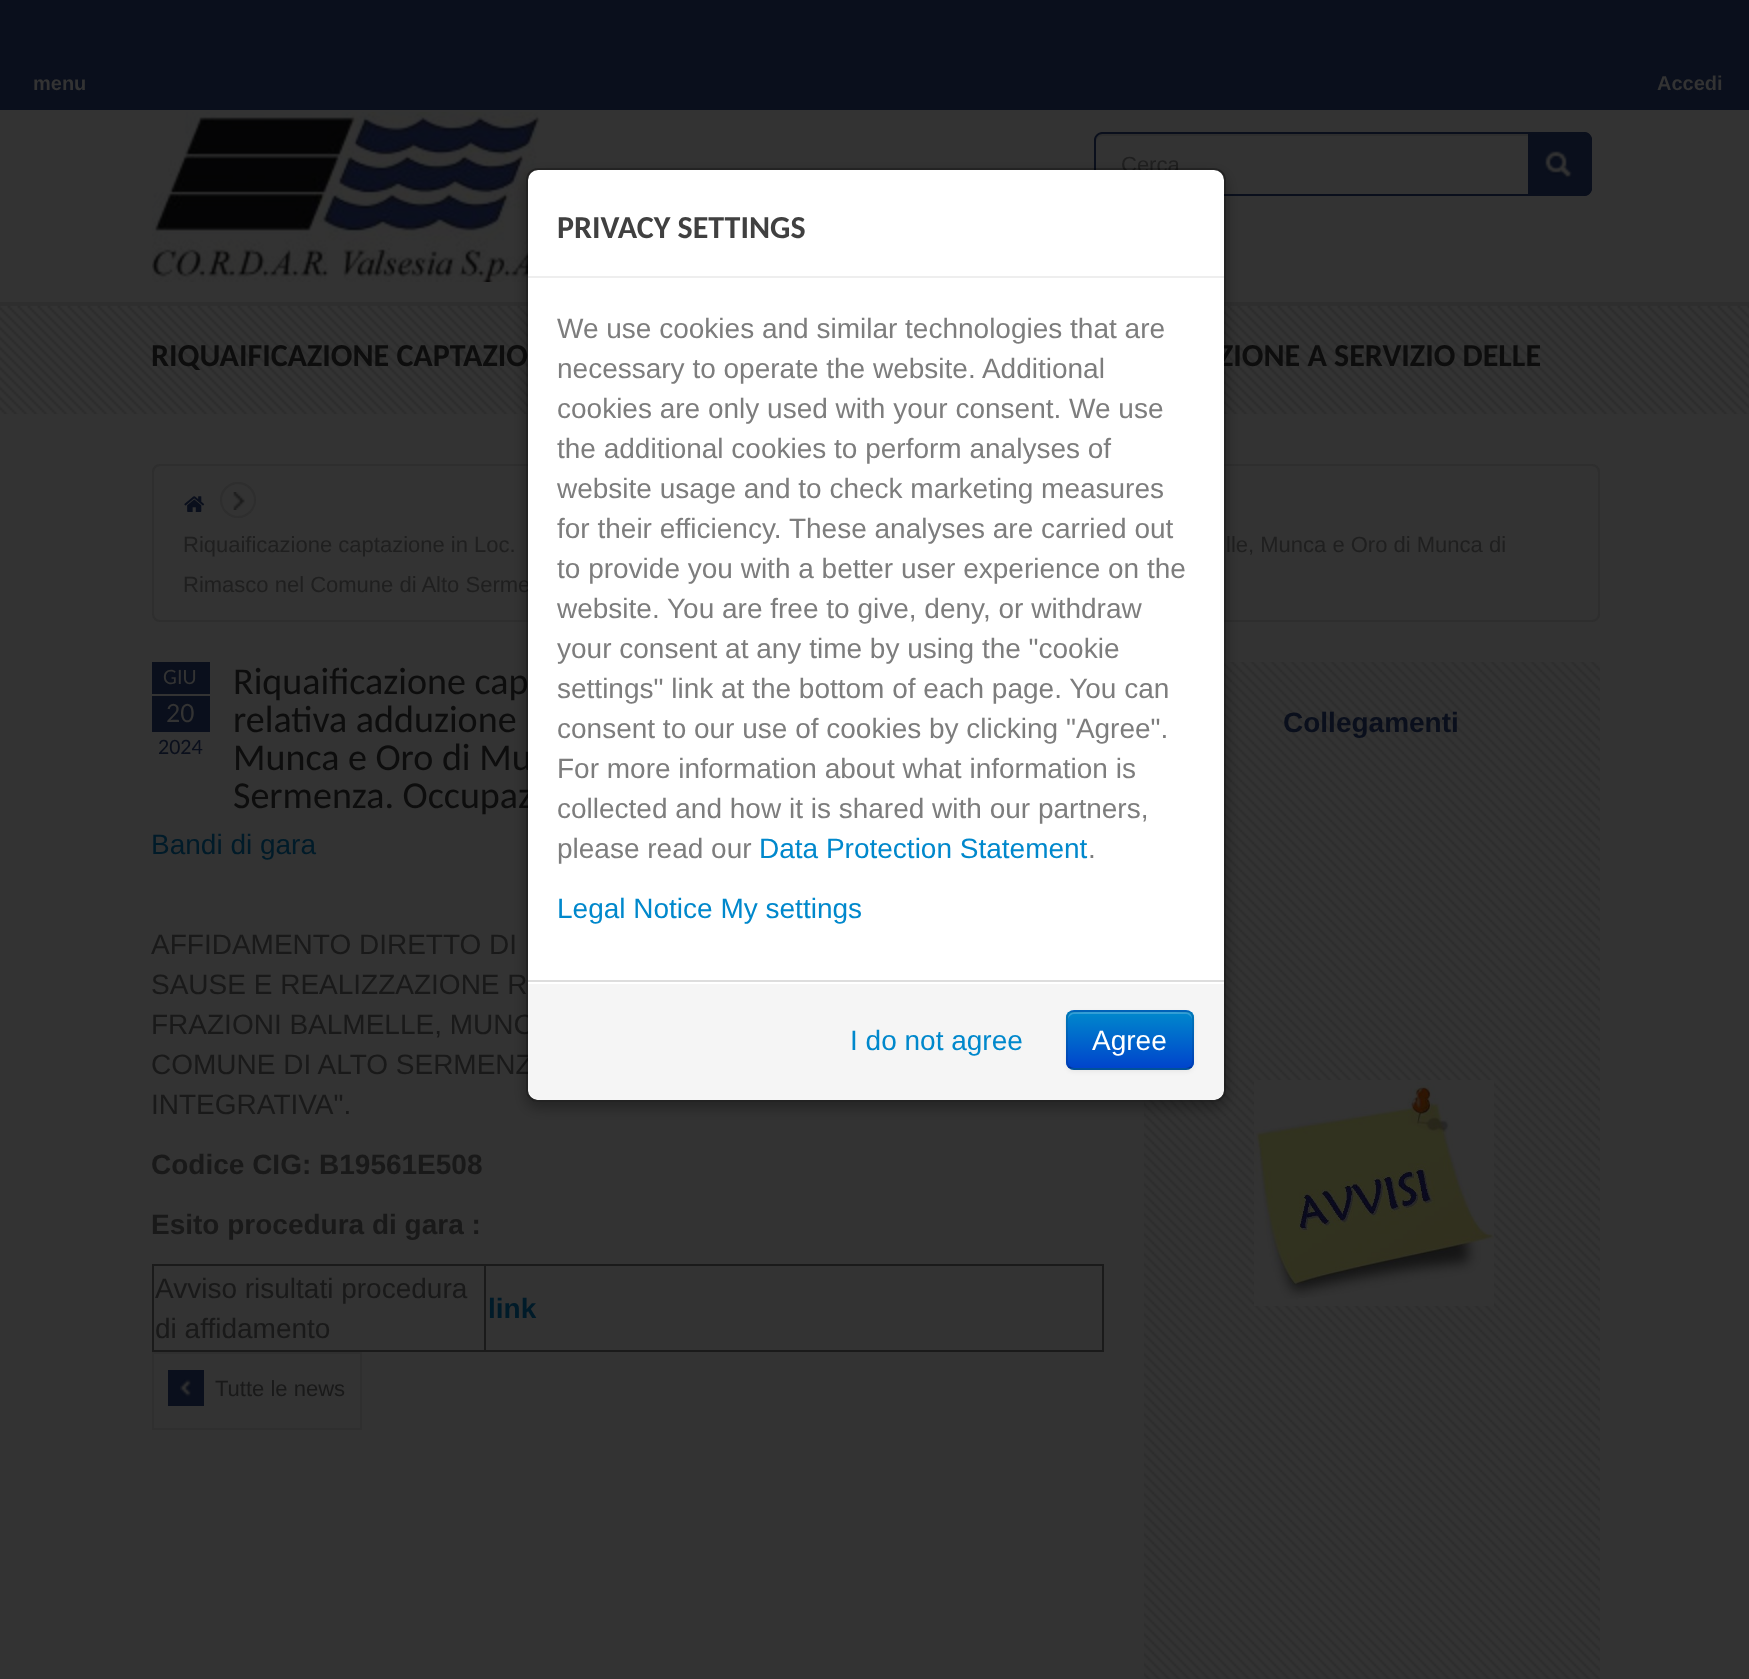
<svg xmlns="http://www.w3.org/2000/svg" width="1749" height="1679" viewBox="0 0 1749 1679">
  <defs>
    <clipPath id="clip1"><path d="M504 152H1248V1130H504ZM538 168H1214C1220.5 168 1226 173.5 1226 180V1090C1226 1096.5 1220.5 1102 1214 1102H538C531.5 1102 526 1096.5 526 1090V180C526 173.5 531.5 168 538 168Z" clip-rule="evenodd"/></clipPath>
    <filter id="blur1" x="-50%" y="-200%" width="200%" height="500%"><feGaussianBlur stdDeviation="7"/></filter>
    <filter id="blur2" x="-50%" y="-200%" width="200%" height="500%"><feGaussianBlur stdDeviation="2"/></filter>
    <clipPath id="clip2"><rect x="1066" y="1010" width="128" height="60" rx="8"/></clipPath>
    <linearGradient id="g1" gradientUnits="userSpaceOnUse" x1="1130" y1="1012" x2="1130" y2="1068"><stop offset="0" stop-color="#0088cc"/><stop offset="1" stop-color="#0044cc"/></linearGradient>
  </defs>
  <rect width="100%" height="100%" fill="#333333"/>
  <rect x="0" y="0" width="1749" height="110" fill="#0a0f1c"/>
  <text x="33" y="90" font-family="Liberation Sans" font-size="20" font-weight="bold" fill="#333333">menu</text>
  <text x="1657" y="90" font-family="Liberation Sans" font-size="20" font-weight="bold" fill="#333333">Accedi</text>
  <image x="152" y="112" width="388" height="170" href="img1.png"/>
  <path d="M1102 136H1530C1534 136 1538 139 1538 142V140C1538 137 1534 134 1530 134H1102C1099 134 1096 137 1096 140V142C1096 139 1099 136 1102 136Z" fill="#2e2e2e"/>
  <path d="M1102 132H1530C1534 132 1538 136 1538 140V188C1538 192 1534 196 1530 196H1102C1098 196 1094 192 1094 188V140C1094 136 1098 132 1102 132ZM1102 134H1530C1534 134 1538 137 1538 140V188C1538 191 1534 194 1530 194H1102C1099 194 1096 191 1096 188V140C1096 137 1099 134 1102 134Z" fill="#0a0f1c" fill-rule="evenodd"/>
  <text x="1121" y="172" font-family="Liberation Sans" font-size="22" fill="#1f1f1f">Cerca</text>
  <path d="M1528 132H1584C1588.5 132 1592 135.5 1592 140V188C1592 192.5 1588.5 196 1584 196H1528Z" fill="#0a0f1c"/>
  <path d="M1528 132H1584C1588 132 1592 136 1592 140V188C1592 192 1588 196 1584 196H1528ZM1528 134H1584C1587 134 1590 137 1590 140V188C1590 191 1587 194 1584 194H1528Z" fill="#0a0f1c" fill-rule="evenodd"/>
  <image x="1545" y="151" width="27" height="27" href="img2.png"/>
  <rect x="0" y="302" width="1749" height="4" fill="#2e2e2e"/>
  <image x="0" y="306" width="1749" height="108" href="img3.png"/>
  <text x="151" y="366" font-family="Carlito" font-size="32" font-weight="bold" fill="#0d0d0d">RIQUAIFICAZIONE CAPTAZIO</text>
  <text x="1218" y="366" font-family="Carlito" font-size="32" font-weight="bold" fill="#0d0d0d">ZIONE A SERVIZIO DELLE</text>
  <rect x="153" y="465" width="1446" height="156" rx="7" fill="none" stroke="#2e2e2e" stroke-width="2"/>
  <image x="184" y="496" width="21" height="16" href="img4.png"/>
  <image x="233" y="492" width="12" height="18" href="img5.png"/>
  <circle cx="238" cy="500" r="17" fill="none" stroke="#2e2e2e" stroke-width="2"/>
  <text x="183" y="552" font-family="Liberation Sans" font-size="22" fill="#1f1f1f">Riquaificazione captazione in Loc.</text>
  <text x="1226" y="552" font-family="Liberation Sans" font-size="22" fill="#1f1f1f">lle, Munca e Oro di Munca di</text>
  <text x="183" y="592" font-family="Liberation Sans" font-size="22" fill="#1f1f1f">Rimasco nel Comune di Alto Serme</text>
  <rect x="152" y="662" width="58" height="70" fill="#0a0f1c"/>
  <rect x="152" y="694" width="58" height="2" fill="#333333"/>
  <text x="163" y="684" font-family="Carlito" font-size="22" fill="#333333">GIU</text>
  <text x="166" y="722" font-family="Carlito" font-size="28" fill="#333333">20</text>
  <text x="158" y="754" font-family="Carlito" font-size="22" fill="#0a0f1c">2024</text>
  <text x="233" y="694" font-family="Carlito" font-size="38" fill="#0d0d0d">Riquaificazione cap</text>
  <text x="233" y="732" font-family="Carlito" font-size="38" fill="#0d0d0d">relativa adduzione</text>
  <text x="233" y="770" font-family="Carlito" font-size="38" fill="#0d0d0d">Munca e Oro di Mu</text>
  <text x="233" y="808" font-family="Carlito" font-size="38" fill="#0d0d0d">Sermenza. Occupaz</text>
  <text x="151" y="854" font-family="Liberation Sans" font-size="28" fill="#001b29">Bandi di gara</text>
  <text x="151" y="954" font-family="Liberation Sans" font-size="28" fill="#191919">AFFIDAMENTO DIRETTO DI</text>
  <text x="151" y="994" font-family="Liberation Sans" font-size="28" fill="#191919">SAUSE E REALIZZAZIONE R</text>
  <text x="151" y="1034" font-family="Liberation Sans" font-size="28" fill="#191919">FRAZIONI BALMELLE, MUNC</text>
  <text x="151" y="1074" font-family="Liberation Sans" font-size="28" fill="#191919">COMUNE DI ALTO SERMENZ</text>
  <text x="151" y="1114" font-family="Liberation Sans" font-size="28" fill="#191919">INTEGRATIVA".</text>
  <text x="151" y="1174" font-family="Liberation Sans" font-size="28" font-weight="bold" fill="#191919">Codice CIG: B19561E508</text>
  <text x="151" y="1234" font-family="Liberation Sans" font-size="28" font-weight="bold" fill="#191919">Esito procedura di gara :</text>
  <rect x="152" y="1264" width="952" height="2" fill="#1a1a1a"/>
  <rect x="1102" y="1264" width="2" height="88" fill="#1a1a1a"/>
  <rect x="152" y="1350" width="952" height="2" fill="#1a1a1a"/>
  <rect x="152" y="1264" width="2" height="88" fill="#1a1a1a"/>
  <text x="155" y="1298" font-family="Liberation Sans" font-size="28" fill="#191919">Avviso risultati procedura</text>
  <text x="155" y="1338" font-family="Liberation Sans" font-size="28" fill="#191919">di affidamento</text>
  <rect x="484" y="1264" width="2" height="88" fill="#1a1a1a"/>
  <text x="488" y="1318" font-family="Liberation Sans" font-size="28" font-weight="bold" fill="#001b29">link</text>
  <rect x="153" y="1353" width="208" height="76" fill="none" stroke="#2f2f2f" stroke-width="2"/>
  <rect x="168" y="1370" width="36" height="36" fill="#0a0f1c"/>
  <image x="180" y="1379" width="11" height="18" href="img6.png"/>
  <text x="215" y="1396" font-family="Liberation Sans" font-size="22" fill="#191919">Tutte le news</text>
  <image x="1144" y="662" width="456" height="1017" href="img7.png"/>
  <text x="1283" y="732" font-family="Liberation Sans" font-size="28" font-weight="bold" fill="#0a0f1c">Collegamenti</text>
  <image x="1254" y="1080" width="240" height="226" href="img8.png"/>
  <g clip-path="url(#clip1)">
    <rect x="526" y="174" width="700" height="934" rx="12" fill="#000000" fill-opacity="0.3" filter="url(#blur1)"/>
  </g>
  <rect x="528" y="170" width="696" height="930" rx="10" fill="#ffffff"/>
  <rect x="527" y="169" width="698" height="932" rx="11" fill="none" stroke="#000000" stroke-opacity="0.3" stroke-width="2"/>
  <rect x="528" y="276" width="696" height="2" fill="#eeeeee"/>
  <text x="557" y="238" font-family="Carlito" font-size="32" font-weight="bold" fill="#404040">PRIVACY SETTINGS</text>
  <text x="557" y="338" font-family="Liberation Sans" font-size="28" fill="#7d7d7d">We use cookies and similar technologies that are</text>
  <text x="557" y="378" font-family="Liberation Sans" font-size="28" fill="#7d7d7d">necessary to operate the website. Additional</text>
  <text x="557" y="418" font-family="Liberation Sans" font-size="28" fill="#7d7d7d">cookies are only used with your consent. We use</text>
  <text x="557" y="458" font-family="Liberation Sans" font-size="28" fill="#7d7d7d">the additional cookies to perform analyses of</text>
  <text x="557" y="498" font-family="Liberation Sans" font-size="28" fill="#7d7d7d">website usage and to check marketing measures</text>
  <text x="557" y="538" font-family="Liberation Sans" font-size="28" fill="#7d7d7d">for their efficiency. These analyses are carried out</text>
  <text x="557" y="578" font-family="Liberation Sans" font-size="28" fill="#7d7d7d">to provide you with a better user experience on the</text>
  <text x="557" y="618" font-family="Liberation Sans" font-size="28" fill="#7d7d7d">website. You are free to give, deny, or withdraw</text>
  <text x="557" y="658" font-family="Liberation Sans" font-size="28" fill="#7d7d7d">your consent at any time by using the "cookie</text>
  <text x="557" y="698" font-family="Liberation Sans" font-size="28" fill="#7d7d7d">settings" link at the bottom of each page. You can</text>
  <text x="557" y="738" font-family="Liberation Sans" font-size="28" fill="#7d7d7d">consent to our use of cookies by clicking "Agree".</text>
  <text x="557" y="778" font-family="Liberation Sans" font-size="28" fill="#7d7d7d">For more information about what information is</text>
  <text x="557" y="818" font-family="Liberation Sans" font-size="28" fill="#7d7d7d">collected and how it is shared with our partners,</text>
  <text x="557" y="858" font-family="Liberation Sans" font-size="28" fill="#7d7d7d">please read our</text>
  <text x="759" y="858" font-family="Liberation Sans" font-size="28" fill="#0088cc">Data Protection Statement</text>
  <text x="1088" y="858" font-family="Liberation Sans" font-size="28" fill="#7d7d7d">.</text>
  <text x="557" y="918" font-family="Liberation Sans" font-size="28" fill="#0088cc">Legal Notice My settings</text>
  <path d="M528 980H1224V1088C1224 1094.5 1218.5 1100 1212 1100H540C533.5 1100 528 1094.5 528 1088Z" fill="#f5f5f5"/>
  <rect x="528" y="982" width="696" height="2" fill="#ffffff"/>
  <rect x="528" y="980" width="696" height="2" fill="#dddddd"/>
  <text x="850" y="1050" font-family="Liberation Sans" font-size="28" fill="#0088cc">I do not agree</text>
  <rect x="1066" y="1012" width="128" height="60" rx="8" fill="#000000" fill-opacity="0.05" filter="url(#blur2)"/>
  <rect x="1066" y="1010" width="128" height="60" rx="8" fill="#006dcc"/>
  <g clip-path="url(#clip2)">
    <rect x="1066" y="1012" width="128" height="56" fill="url(#g1)"/>
  </g>
  <path d="M1074 1014H1186C1189 1014 1192 1017 1192 1020V1018C1192 1015 1189 1012 1186 1012H1074C1071 1012 1068 1015 1068 1018V1020C1068 1017 1071 1014 1074 1014Z" fill="#ffffff" fill-opacity="0.2"/>
  <path d="M1191 1067C1189.5 1068.5 1188 1069 1186 1069H1074C1072 1069 1070.5 1068.5 1069 1067" fill="none" stroke="#000000" stroke-opacity="0.25" stroke-width="2"/>
  <path d="M1069 1067C1066 1064 1067 1058.5 1067 1054.5V1040C1067 1008.5 1062 1011 1092.5 1011H1167.5C1198 1011 1193 1008.5 1193 1040V1054.5C1193 1058.5 1194 1064 1191 1067" fill="none" stroke="#000000" stroke-opacity="0.1" stroke-width="2"/>
  <text x="1092" y="1050" font-family="Liberation Sans" font-size="28" fill="#ffffff">Agree</text>
</svg>
